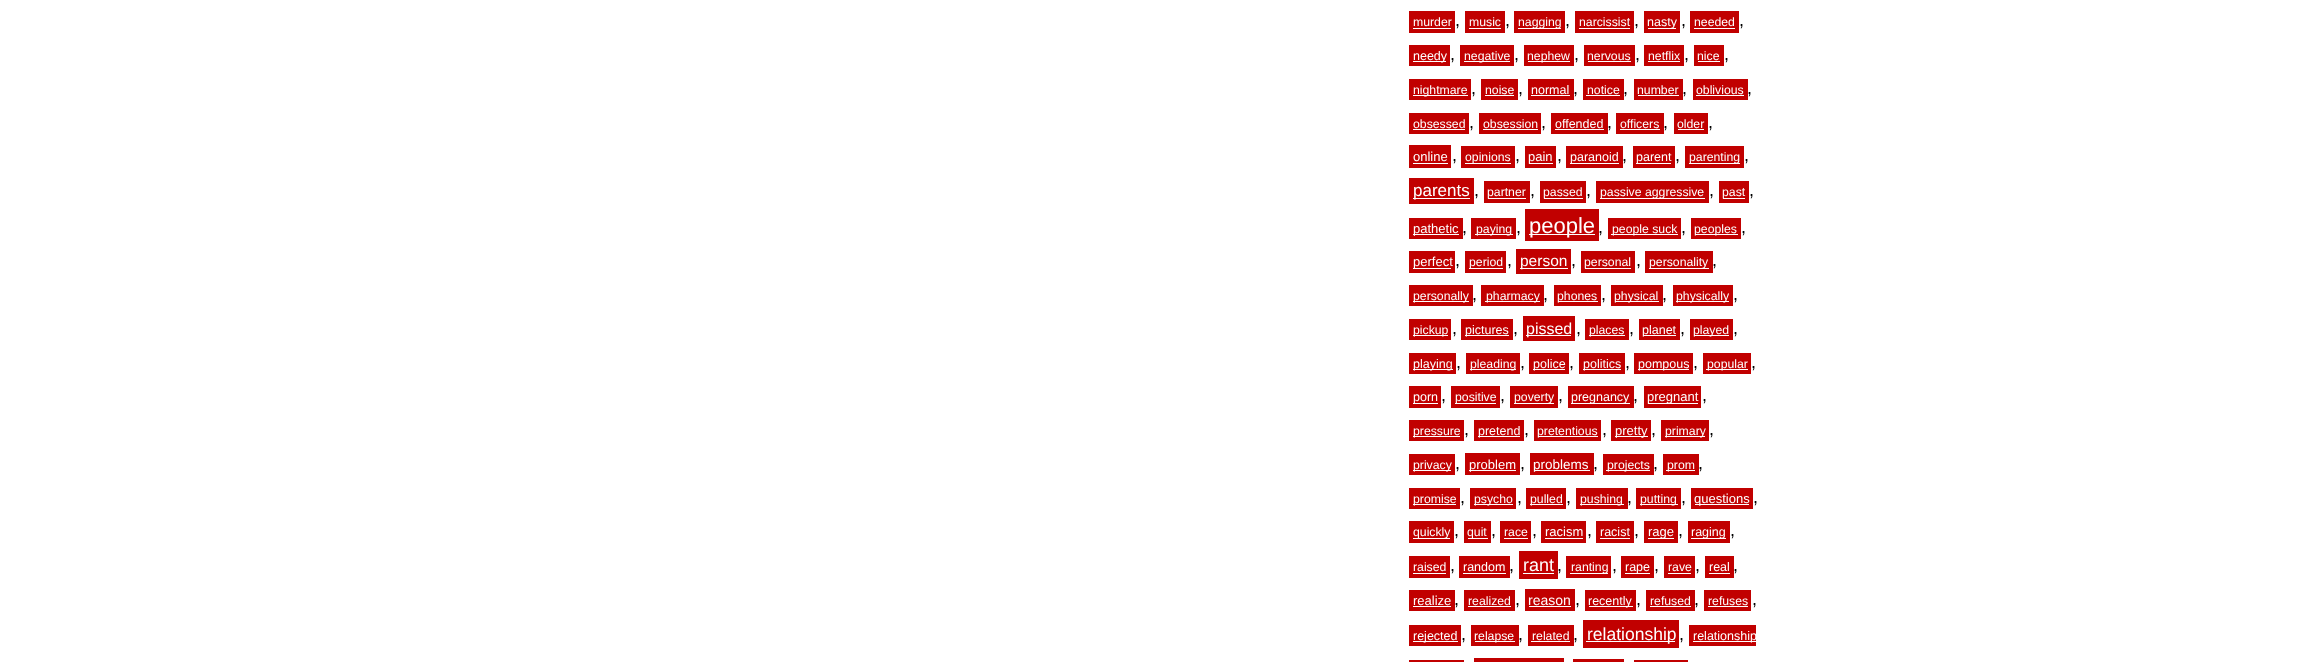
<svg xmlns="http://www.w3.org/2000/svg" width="2324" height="662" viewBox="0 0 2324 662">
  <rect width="100%" height="100%" fill="#ffffff"/>
  <rect x="1409" y="11" width="46" height="22" fill="#c10000"/>
  <text x="1413" y="26" font-family="Liberation Sans" font-size="12.25" fill="#ffffff">murder</text>
  <rect x="1413" y="28" width="38" height="1" fill="#ffffff"/>
  <text x="1455" y="26" font-family="Liberation Sans" font-size="18" fill="#000000">,</text>
  <rect x="1465" y="11" width="40" height="22" fill="#c10000"/>
  <text x="1469" y="26" font-family="Liberation Sans" font-size="12.25" fill="#ffffff">music</text>
  <rect x="1469" y="28" width="32" height="1" fill="#ffffff"/>
  <text x="1505" y="26" font-family="Liberation Sans" font-size="18" fill="#000000">,</text>
  <rect x="1514" y="11" width="51" height="22" fill="#c10000"/>
  <rect x="1518" y="28" width="43" height="1" fill="#ffffff"/>
  <text x="1518" y="26" font-family="Liberation Sans" font-size="12.25" fill="#ffffff">nagging</text>
  <text x="1565" y="26" font-family="Liberation Sans" font-size="18" fill="#000000">,</text>
  <rect x="1575" y="11" width="59" height="22" fill="#c10000"/>
  <text x="1579" y="26" font-family="Liberation Sans" font-size="12.25" fill="#ffffff">narcissist</text>
  <rect x="1579" y="28" width="51" height="1" fill="#ffffff"/>
  <text x="1634" y="26" font-family="Liberation Sans" font-size="18" fill="#000000">,</text>
  <rect x="1644" y="11" width="36" height="22" fill="#c10000"/>
  <rect x="1648" y="28" width="28" height="1" fill="#ffffff"/>
  <text x="1647" y="26" font-family="Liberation Sans" font-size="12.5" fill="#ffffff">nasty</text>
  <text x="1681" y="26" font-family="Liberation Sans" font-size="18" fill="#000000">,</text>
  <rect x="1690" y="11" width="49" height="22" fill="#c10000"/>
  <text x="1694" y="26" font-family="Liberation Sans" font-size="12.25" fill="#ffffff">needed</text>
  <rect x="1694" y="28" width="41" height="1" fill="#ffffff"/>
  <text x="1739" y="26" font-family="Liberation Sans" font-size="18" fill="#000000">,</text>
  <rect x="1409" y="45" width="41" height="21" fill="#c10000"/>
  <rect x="1413" y="61" width="33" height="1" fill="#ffffff"/>
  <text x="1413" y="60" font-family="Liberation Sans" font-size="12.5" fill="#ffffff">needy</text>
  <text x="1450" y="60" font-family="Liberation Sans" font-size="18" fill="#000000">,</text>
  <rect x="1460" y="45" width="54" height="21" fill="#c10000"/>
  <rect x="1464" y="61" width="46" height="1" fill="#ffffff"/>
  <text x="1464" y="60" font-family="Liberation Sans" font-size="12.25" fill="#ffffff">negative</text>
  <text x="1514" y="60" font-family="Liberation Sans" font-size="18" fill="#000000">,</text>
  <rect x="1524" y="45" width="50" height="21" fill="#c10000"/>
  <rect x="1528" y="61" width="42" height="1" fill="#ffffff"/>
  <text x="1527" y="60" font-family="Liberation Sans" font-size="12.25" fill="#ffffff">nephew</text>
  <text x="1574" y="60" font-family="Liberation Sans" font-size="18" fill="#000000">,</text>
  <rect x="1584" y="45" width="51" height="21" fill="#c10000"/>
  <text x="1587" y="60" font-family="Liberation Sans" font-size="12.25" fill="#ffffff">nervous</text>
  <rect x="1588" y="61" width="43" height="1" fill="#ffffff"/>
  <text x="1635" y="60" font-family="Liberation Sans" font-size="18" fill="#000000">,</text>
  <rect x="1644" y="45" width="40" height="21" fill="#c10000"/>
  <text x="1648" y="60" font-family="Liberation Sans" font-size="12.25" fill="#ffffff">netflix</text>
  <rect x="1648" y="61" width="32" height="1" fill="#ffffff"/>
  <text x="1684" y="60" font-family="Liberation Sans" font-size="18" fill="#000000">,</text>
  <rect x="1694" y="45" width="30" height="21" fill="#c10000"/>
  <text x="1697" y="60" font-family="Liberation Sans" font-size="12.25" fill="#ffffff">nice</text>
  <rect x="1698" y="61" width="22" height="1" fill="#ffffff"/>
  <text x="1724" y="60" font-family="Liberation Sans" font-size="18" fill="#000000">,</text>
  <rect x="1409" y="79" width="62" height="21" fill="#c10000"/>
  <rect x="1413" y="95" width="55" height="1" fill="#ffffff"/>
  <text x="1413" y="94" font-family="Liberation Sans" font-size="12.25" fill="#ffffff">nightmare</text>
  <text x="1471" y="94" font-family="Liberation Sans" font-size="18" fill="#000000">,</text>
  <rect x="1481" y="79" width="37" height="21" fill="#c10000"/>
  <text x="1485" y="94" font-family="Liberation Sans" font-size="12.25" fill="#ffffff">noise</text>
  <rect x="1485" y="95" width="29" height="1" fill="#ffffff"/>
  <text x="1518" y="94" font-family="Liberation Sans" font-size="18" fill="#000000">,</text>
  <rect x="1528" y="79" width="46" height="21" fill="#c10000"/>
  <text x="1531" y="94" font-family="Liberation Sans" font-size="12.5" fill="#ffffff">normal</text>
  <rect x="1531" y="95" width="39" height="1" fill="#ffffff"/>
  <text x="1573" y="94" font-family="Liberation Sans" font-size="18" fill="#000000">,</text>
  <rect x="1583" y="79" width="41" height="21" fill="#c10000"/>
  <text x="1587" y="94" font-family="Liberation Sans" font-size="12.25" fill="#ffffff">notice</text>
  <rect x="1586" y="95" width="34" height="1" fill="#ffffff"/>
  <text x="1623" y="94" font-family="Liberation Sans" font-size="18" fill="#000000">,</text>
  <rect x="1634" y="79" width="49" height="21" fill="#c10000"/>
  <text x="1637" y="94" font-family="Liberation Sans" font-size="12.25" fill="#ffffff">number</text>
  <rect x="1638" y="95" width="41" height="1" fill="#ffffff"/>
  <text x="1682" y="94" font-family="Liberation Sans" font-size="18" fill="#000000">,</text>
  <rect x="1693" y="79" width="55" height="21" fill="#c10000"/>
  <text x="1696" y="94" font-family="Liberation Sans" font-size="12.25" fill="#ffffff">oblivious</text>
  <rect x="1696" y="95" width="48" height="1" fill="#ffffff"/>
  <text x="1747" y="94" font-family="Liberation Sans" font-size="18" fill="#000000">,</text>
  <rect x="1409" y="113" width="60" height="21" fill="#c10000"/>
  <text x="1413" y="128" font-family="Liberation Sans" font-size="12.25" fill="#ffffff">obsessed</text>
  <rect x="1413" y="129" width="52" height="1" fill="#ffffff"/>
  <text x="1469" y="128" font-family="Liberation Sans" font-size="18" fill="#000000">,</text>
  <rect x="1479" y="113" width="62" height="21" fill="#c10000"/>
  <text x="1483" y="128" font-family="Liberation Sans" font-size="12.25" fill="#ffffff">obsession</text>
  <rect x="1483" y="129" width="55" height="1" fill="#ffffff"/>
  <text x="1541" y="128" font-family="Liberation Sans" font-size="18" fill="#000000">,</text>
  <rect x="1551" y="113" width="57" height="21" fill="#c10000"/>
  <text x="1555" y="128" font-family="Liberation Sans" font-size="12.5" fill="#ffffff">offended</text>
  <rect x="1555" y="129" width="49" height="1" fill="#ffffff"/>
  <text x="1607" y="128" font-family="Liberation Sans" font-size="18" fill="#000000">,</text>
  <rect x="1616" y="113" width="48" height="21" fill="#c10000"/>
  <text x="1620" y="128" font-family="Liberation Sans" font-size="12.25" fill="#ffffff">officers</text>
  <rect x="1620" y="129" width="40" height="1" fill="#ffffff"/>
  <text x="1663" y="128" font-family="Liberation Sans" font-size="18" fill="#000000">,</text>
  <rect x="1674" y="113" width="34" height="21" fill="#c10000"/>
  <text x="1677" y="128" font-family="Liberation Sans" font-size="12.25" fill="#ffffff">older</text>
  <rect x="1678" y="129" width="26" height="1" fill="#ffffff"/>
  <text x="1708" y="128" font-family="Liberation Sans" font-size="18" fill="#000000">,</text>
  <rect x="1409" y="145" width="42" height="23" fill="#c10000"/>
  <text x="1413" y="161" font-family="Liberation Sans" font-size="13" fill="#ffffff">online</text>
  <rect x="1413" y="163" width="35" height="1" fill="#ffffff"/>
  <text x="1452" y="161" font-family="Liberation Sans" font-size="18" fill="#000000">,</text>
  <rect x="1461" y="146" width="54" height="22" fill="#c10000"/>
  <rect x="1465" y="163" width="46" height="1" fill="#ffffff"/>
  <text x="1465" y="161" font-family="Liberation Sans" font-size="12.25" fill="#ffffff">opinions</text>
  <text x="1515" y="161" font-family="Liberation Sans" font-size="18" fill="#000000">,</text>
  <rect x="1525" y="146" width="31" height="22" fill="#c10000"/>
  <rect x="1529" y="163" width="24" height="1" fill="#ffffff"/>
  <text x="1528" y="161" font-family="Liberation Sans" font-size="13" fill="#ffffff">pain</text>
  <text x="1557" y="161" font-family="Liberation Sans" font-size="18" fill="#000000">,</text>
  <rect x="1566" y="146" width="57" height="22" fill="#c10000"/>
  <rect x="1570" y="163" width="49" height="1" fill="#ffffff"/>
  <text x="1570" y="161" font-family="Liberation Sans" font-size="12.5" fill="#ffffff">paranoid</text>
  <text x="1622" y="161" font-family="Liberation Sans" font-size="18" fill="#000000">,</text>
  <rect x="1633" y="146" width="42" height="22" fill="#c10000"/>
  <rect x="1636" y="163" width="35" height="1" fill="#ffffff"/>
  <text x="1636" y="161" font-family="Liberation Sans" font-size="12.5" fill="#ffffff">parent</text>
  <text x="1675" y="161" font-family="Liberation Sans" font-size="18" fill="#000000">,</text>
  <rect x="1685" y="146" width="59" height="22" fill="#c10000"/>
  <rect x="1689" y="163" width="51" height="1" fill="#ffffff"/>
  <text x="1689" y="161" font-family="Liberation Sans" font-size="12.25" fill="#ffffff">parenting</text>
  <text x="1744" y="161" font-family="Liberation Sans" font-size="18" fill="#000000">,</text>
  <rect x="1409" y="178" width="65" height="26" fill="#c10000"/>
  <rect x="1413" y="198" width="57" height="1" fill="#ffffff"/>
  <text x="1413" y="196" font-family="Liberation Sans" font-size="17" fill="#ffffff">parents</text>
  <text x="1474" y="196" font-family="Liberation Sans" font-size="18" fill="#000000">,</text>
  <rect x="1484" y="181" width="46" height="22" fill="#c10000"/>
  <rect x="1488" y="198" width="38" height="1" fill="#ffffff"/>
  <text x="1487" y="196" font-family="Liberation Sans" font-size="12.25" fill="#ffffff">partner</text>
  <text x="1530" y="196" font-family="Liberation Sans" font-size="18" fill="#000000">,</text>
  <rect x="1540" y="181" width="46" height="22" fill="#c10000"/>
  <rect x="1544" y="198" width="39" height="1" fill="#ffffff"/>
  <text x="1543" y="196" font-family="Liberation Sans" font-size="12.25" fill="#ffffff">passed</text>
  <text x="1586" y="196" font-family="Liberation Sans" font-size="18" fill="#000000">,</text>
  <rect x="1596" y="181" width="113" height="22" fill="#c10000"/>
  <rect x="1600" y="198" width="105" height="1" fill="#ffffff"/>
  <text x="1600" y="196" font-family="Liberation Sans" font-size="12.25" fill="#ffffff">passive aggressive</text>
  <text x="1709" y="196" font-family="Liberation Sans" font-size="18" fill="#000000">,</text>
  <rect x="1719" y="181" width="30" height="22" fill="#c10000"/>
  <rect x="1723" y="198" width="22" height="1" fill="#ffffff"/>
  <text x="1722" y="196" font-family="Liberation Sans" font-size="12.25" fill="#ffffff">past</text>
  <text x="1749" y="196" font-family="Liberation Sans" font-size="18" fill="#000000">,</text>
  <rect x="1409" y="218" width="54" height="21" fill="#c10000"/>
  <rect x="1413" y="234" width="46" height="1" fill="#ffffff"/>
  <text x="1413" y="233" font-family="Liberation Sans" font-size="13" fill="#ffffff">pathetic</text>
  <text x="1462" y="233" font-family="Liberation Sans" font-size="18" fill="#000000">,</text>
  <rect x="1471" y="218" width="45" height="21" fill="#c10000"/>
  <rect x="1475" y="234" width="38" height="1" fill="#ffffff"/>
  <text x="1476" y="233" font-family="Liberation Sans" font-size="12.25" fill="#ffffff">paying</text>
  <text x="1516" y="233" font-family="Liberation Sans" font-size="18" fill="#000000">,</text>
  <rect x="1525" y="209" width="74" height="32" fill="#c10000"/>
  <rect x="1529" y="234" width="66" height="1" fill="#ffffff"/>
  <text x="1529" y="233" font-family="Liberation Sans" font-size="22" fill="#ffffff">people</text>
  <text x="1598" y="233" font-family="Liberation Sans" font-size="18" fill="#000000">,</text>
  <rect x="1608" y="218" width="73" height="21" fill="#c10000"/>
  <rect x="1611" y="234" width="67" height="1" fill="#ffffff"/>
  <text x="1612" y="233" font-family="Liberation Sans" font-size="12.25" fill="#ffffff">people suck</text>
  <text x="1681" y="233" font-family="Liberation Sans" font-size="18" fill="#000000">,</text>
  <rect x="1691" y="218" width="50" height="21" fill="#c10000"/>
  <rect x="1695" y="234" width="43" height="1" fill="#ffffff"/>
  <text x="1694" y="233" font-family="Liberation Sans" font-size="12.25" fill="#ffffff">peoples</text>
  <text x="1741" y="233" font-family="Liberation Sans" font-size="18" fill="#000000">,</text>
  <rect x="1409" y="251" width="46" height="22" fill="#c10000"/>
  <rect x="1413" y="268" width="38" height="1" fill="#ffffff"/>
  <text x="1413" y="266" font-family="Liberation Sans" font-size="13" fill="#ffffff">perfect</text>
  <text x="1455" y="266" font-family="Liberation Sans" font-size="18" fill="#000000">,</text>
  <rect x="1465" y="251" width="41" height="22" fill="#c10000"/>
  <rect x="1469" y="268" width="34" height="1" fill="#ffffff"/>
  <text x="1469" y="266" font-family="Liberation Sans" font-size="12.25" fill="#ffffff">period</text>
  <text x="1507" y="266" font-family="Liberation Sans" font-size="18" fill="#000000">,</text>
  <rect x="1516" y="249" width="55" height="25" fill="#c10000"/>
  <rect x="1520" y="268" width="48" height="1" fill="#ffffff"/>
  <text x="1520" y="266" font-family="Liberation Sans" font-size="15.5" fill="#ffffff">person</text>
  <text x="1571" y="266" font-family="Liberation Sans" font-size="18" fill="#000000">,</text>
  <rect x="1581" y="251" width="54" height="22" fill="#c10000"/>
  <rect x="1585" y="268" width="46" height="1" fill="#ffffff"/>
  <text x="1584" y="266" font-family="Liberation Sans" font-size="12.25" fill="#ffffff">personal</text>
  <text x="1636" y="266" font-family="Liberation Sans" font-size="18" fill="#000000">,</text>
  <rect x="1645" y="251" width="68" height="22" fill="#c10000"/>
  <rect x="1649" y="268" width="60" height="1" fill="#ffffff"/>
  <text x="1649" y="266" font-family="Liberation Sans" font-size="12.25" fill="#ffffff">personality</text>
  <text x="1712" y="266" font-family="Liberation Sans" font-size="18" fill="#000000">,</text>
  <rect x="1409" y="285" width="64" height="21" fill="#c10000"/>
  <rect x="1413" y="301" width="56" height="1" fill="#ffffff"/>
  <text x="1413" y="300" font-family="Liberation Sans" font-size="12.25" fill="#ffffff">personally</text>
  <text x="1472" y="300" font-family="Liberation Sans" font-size="18" fill="#000000">,</text>
  <rect x="1481" y="285" width="63" height="21" fill="#c10000"/>
  <rect x="1485" y="301" width="55" height="1" fill="#ffffff"/>
  <text x="1486" y="300" font-family="Liberation Sans" font-size="12.25" fill="#ffffff">pharmacy</text>
  <text x="1543" y="300" font-family="Liberation Sans" font-size="18" fill="#000000">,</text>
  <rect x="1554" y="285" width="47" height="21" fill="#c10000"/>
  <rect x="1558" y="301" width="40" height="1" fill="#ffffff"/>
  <text x="1557" y="300" font-family="Liberation Sans" font-size="12.25" fill="#ffffff">phones</text>
  <text x="1601" y="300" font-family="Liberation Sans" font-size="18" fill="#000000">,</text>
  <rect x="1611" y="285" width="52" height="21" fill="#c10000"/>
  <rect x="1615" y="301" width="44" height="1" fill="#ffffff"/>
  <text x="1614" y="300" font-family="Liberation Sans" font-size="12.25" fill="#ffffff">physical</text>
  <text x="1662" y="300" font-family="Liberation Sans" font-size="18" fill="#000000">,</text>
  <rect x="1673" y="285" width="60" height="21" fill="#c10000"/>
  <rect x="1676" y="301" width="53" height="1" fill="#ffffff"/>
  <text x="1676" y="300" font-family="Liberation Sans" font-size="12.25" fill="#ffffff">physically</text>
  <text x="1733" y="300" font-family="Liberation Sans" font-size="18" fill="#000000">,</text>
  <rect x="1409" y="319" width="42" height="21" fill="#c10000"/>
  <rect x="1413" y="335" width="35" height="1" fill="#ffffff"/>
  <text x="1413" y="334" font-family="Liberation Sans" font-size="12.25" fill="#ffffff">pickup</text>
  <text x="1452" y="334" font-family="Liberation Sans" font-size="18" fill="#000000">,</text>
  <rect x="1461" y="319" width="52" height="21" fill="#c10000"/>
  <rect x="1465" y="335" width="44" height="1" fill="#ffffff"/>
  <text x="1465" y="334" font-family="Liberation Sans" font-size="12.5" fill="#ffffff">pictures</text>
  <text x="1513" y="334" font-family="Liberation Sans" font-size="18" fill="#000000">,</text>
  <rect x="1523" y="316" width="52" height="25" fill="#c10000"/>
  <rect x="1526" y="335" width="45" height="1" fill="#ffffff"/>
  <text x="1526" y="334" font-family="Liberation Sans" font-size="16" fill="#ffffff">pissed</text>
  <text x="1576" y="334" font-family="Liberation Sans" font-size="18" fill="#000000">,</text>
  <rect x="1585" y="319" width="44" height="21" fill="#c10000"/>
  <rect x="1589" y="335" width="36" height="1" fill="#ffffff"/>
  <text x="1589" y="334" font-family="Liberation Sans" font-size="12.25" fill="#ffffff">places</text>
  <text x="1629" y="334" font-family="Liberation Sans" font-size="18" fill="#000000">,</text>
  <rect x="1639" y="319" width="41" height="21" fill="#c10000"/>
  <rect x="1643" y="335" width="33" height="1" fill="#ffffff"/>
  <text x="1642" y="334" font-family="Liberation Sans" font-size="12.5" fill="#ffffff">planet</text>
  <text x="1680" y="334" font-family="Liberation Sans" font-size="18" fill="#000000">,</text>
  <rect x="1690" y="319" width="43" height="21" fill="#c10000"/>
  <rect x="1694" y="335" width="35" height="1" fill="#ffffff"/>
  <text x="1693" y="334" font-family="Liberation Sans" font-size="12.25" fill="#ffffff">played</text>
  <text x="1733" y="334" font-family="Liberation Sans" font-size="18" fill="#000000">,</text>
  <rect x="1409" y="353" width="47" height="21" fill="#c10000"/>
  <rect x="1413" y="369" width="40" height="1" fill="#ffffff"/>
  <text x="1413" y="368" font-family="Liberation Sans" font-size="12.5" fill="#ffffff">playing</text>
  <text x="1456" y="368" font-family="Liberation Sans" font-size="18" fill="#000000">,</text>
  <rect x="1466" y="353" width="54" height="21" fill="#c10000"/>
  <rect x="1470" y="369" width="46" height="1" fill="#ffffff"/>
  <text x="1470" y="368" font-family="Liberation Sans" font-size="12.25" fill="#ffffff">pleading</text>
  <text x="1520" y="368" font-family="Liberation Sans" font-size="18" fill="#000000">,</text>
  <rect x="1529" y="353" width="40" height="21" fill="#c10000"/>
  <rect x="1533" y="369" width="32" height="1" fill="#ffffff"/>
  <text x="1533" y="368" font-family="Liberation Sans" font-size="12.5" fill="#ffffff">police</text>
  <text x="1569" y="368" font-family="Liberation Sans" font-size="18" fill="#000000">,</text>
  <rect x="1579" y="353" width="46" height="21" fill="#c10000"/>
  <rect x="1583" y="369" width="38" height="1" fill="#ffffff"/>
  <text x="1583" y="368" font-family="Liberation Sans" font-size="12.5" fill="#ffffff">politics</text>
  <text x="1625" y="368" font-family="Liberation Sans" font-size="18" fill="#000000">,</text>
  <rect x="1634" y="353" width="59" height="21" fill="#c10000"/>
  <rect x="1638" y="369" width="51" height="1" fill="#ffffff"/>
  <text x="1638" y="368" font-family="Liberation Sans" font-size="12.5" fill="#ffffff">pompous</text>
  <text x="1693" y="368" font-family="Liberation Sans" font-size="18" fill="#000000">,</text>
  <rect x="1703" y="353" width="48" height="21" fill="#c10000"/>
  <rect x="1706" y="369" width="42" height="1" fill="#ffffff"/>
  <text x="1707" y="368" font-family="Liberation Sans" font-size="12.25" fill="#ffffff">popular</text>
  <text x="1751" y="368" font-family="Liberation Sans" font-size="18" fill="#000000">,</text>
  <rect x="1409" y="386" width="32" height="22" fill="#c10000"/>
  <rect x="1413" y="403" width="25" height="1" fill="#ffffff"/>
  <text x="1413" y="401" font-family="Liberation Sans" font-size="12.5" fill="#ffffff">porn</text>
  <text x="1441" y="401" font-family="Liberation Sans" font-size="18" fill="#000000">,</text>
  <rect x="1451" y="386" width="49" height="22" fill="#c10000"/>
  <rect x="1455" y="403" width="41" height="1" fill="#ffffff"/>
  <text x="1455" y="401" font-family="Liberation Sans" font-size="12.25" fill="#ffffff">positive</text>
  <text x="1500" y="401" font-family="Liberation Sans" font-size="18" fill="#000000">,</text>
  <rect x="1510" y="386" width="48" height="22" fill="#c10000"/>
  <rect x="1514" y="403" width="40" height="1" fill="#ffffff"/>
  <text x="1514" y="401" font-family="Liberation Sans" font-size="12.25" fill="#ffffff">poverty</text>
  <text x="1558" y="401" font-family="Liberation Sans" font-size="18" fill="#000000">,</text>
  <rect x="1568" y="386" width="66" height="22" fill="#c10000"/>
  <rect x="1571" y="403" width="59" height="1" fill="#ffffff"/>
  <text x="1571" y="401" font-family="Liberation Sans" font-size="12.5" fill="#ffffff">pregnancy</text>
  <text x="1633" y="401" font-family="Liberation Sans" font-size="18" fill="#000000">,</text>
  <rect x="1644" y="386" width="57" height="22" fill="#c10000"/>
  <rect x="1648" y="403" width="50" height="1" fill="#ffffff"/>
  <text x="1647" y="401" font-family="Liberation Sans" font-size="13" fill="#ffffff">pregnant</text>
  <text x="1702" y="401" font-family="Liberation Sans" font-size="18" fill="#000000">,</text>
  <rect x="1409" y="420" width="55" height="21" fill="#c10000"/>
  <rect x="1413" y="436" width="47" height="1" fill="#ffffff"/>
  <text x="1413" y="435" font-family="Liberation Sans" font-size="12.25" fill="#ffffff">pressure</text>
  <text x="1464" y="435" font-family="Liberation Sans" font-size="18" fill="#000000">,</text>
  <rect x="1474" y="420" width="50" height="21" fill="#c10000"/>
  <rect x="1478" y="436" width="42" height="1" fill="#ffffff"/>
  <text x="1478" y="435" font-family="Liberation Sans" font-size="12.5" fill="#ffffff">pretend</text>
  <text x="1524" y="435" font-family="Liberation Sans" font-size="18" fill="#000000">,</text>
  <rect x="1534" y="420" width="67" height="21" fill="#c10000"/>
  <rect x="1538" y="436" width="60" height="1" fill="#ffffff"/>
  <text x="1537" y="435" font-family="Liberation Sans" font-size="12.25" fill="#ffffff">pretentious</text>
  <text x="1602" y="435" font-family="Liberation Sans" font-size="18" fill="#000000">,</text>
  <rect x="1611" y="420" width="40" height="21" fill="#c10000"/>
  <rect x="1615" y="436" width="33" height="1" fill="#ffffff"/>
  <text x="1615" y="435" font-family="Liberation Sans" font-size="13" fill="#ffffff">pretty</text>
  <text x="1651" y="435" font-family="Liberation Sans" font-size="18" fill="#000000">,</text>
  <rect x="1661" y="420" width="48" height="21" fill="#c10000"/>
  <rect x="1665" y="436" width="40" height="1" fill="#ffffff"/>
  <text x="1665" y="435" font-family="Liberation Sans" font-size="12.25" fill="#ffffff">primary</text>
  <text x="1709" y="435" font-family="Liberation Sans" font-size="18" fill="#000000">,</text>
  <rect x="1409" y="454" width="46" height="21" fill="#c10000"/>
  <rect x="1413" y="470" width="38" height="1" fill="#ffffff"/>
  <text x="1413" y="469" font-family="Liberation Sans" font-size="12.25" fill="#ffffff">privacy</text>
  <text x="1455" y="469" font-family="Liberation Sans" font-size="18" fill="#000000">,</text>
  <rect x="1465" y="453" width="55" height="22" fill="#c10000"/>
  <rect x="1469" y="470" width="47" height="1" fill="#ffffff"/>
  <text x="1469" y="469" font-family="Liberation Sans" font-size="13" fill="#ffffff">problem</text>
  <text x="1520" y="469" font-family="Liberation Sans" font-size="18" fill="#000000">,</text>
  <rect x="1530" y="453" width="64" height="22" fill="#c10000"/>
  <rect x="1534" y="470" width="56" height="1" fill="#ffffff"/>
  <text x="1533" y="469" font-family="Liberation Sans" font-size="13.5" fill="#ffffff">problems</text>
  <text x="1593" y="469" font-family="Liberation Sans" font-size="18" fill="#000000">,</text>
  <rect x="1603" y="454" width="51" height="21" fill="#c10000"/>
  <rect x="1606" y="470" width="44" height="1" fill="#ffffff"/>
  <text x="1607" y="469" font-family="Liberation Sans" font-size="12.25" fill="#ffffff">projects</text>
  <text x="1653" y="469" font-family="Liberation Sans" font-size="18" fill="#000000">,</text>
  <rect x="1663" y="454" width="36" height="21" fill="#c10000"/>
  <rect x="1666" y="470" width="29" height="1" fill="#ffffff"/>
  <text x="1667" y="469" font-family="Liberation Sans" font-size="12.25" fill="#ffffff">prom</text>
  <text x="1698" y="469" font-family="Liberation Sans" font-size="18" fill="#000000">,</text>
  <rect x="1409" y="488" width="51" height="21" fill="#c10000"/>
  <rect x="1413" y="504" width="43" height="1" fill="#ffffff"/>
  <text x="1413" y="503" font-family="Liberation Sans" font-size="12.25" fill="#ffffff">promise</text>
  <text x="1460" y="503" font-family="Liberation Sans" font-size="18" fill="#000000">,</text>
  <rect x="1470" y="488" width="46" height="21" fill="#c10000"/>
  <rect x="1474" y="504" width="39" height="1" fill="#ffffff"/>
  <text x="1474" y="503" font-family="Liberation Sans" font-size="12.25" fill="#ffffff">psycho</text>
  <text x="1517" y="503" font-family="Liberation Sans" font-size="18" fill="#000000">,</text>
  <rect x="1526" y="488" width="40" height="21" fill="#c10000"/>
  <rect x="1530" y="504" width="33" height="1" fill="#ffffff"/>
  <text x="1530" y="503" font-family="Liberation Sans" font-size="12.25" fill="#ffffff">pulled</text>
  <text x="1566" y="503" font-family="Liberation Sans" font-size="18" fill="#000000">,</text>
  <rect x="1576" y="488" width="52" height="21" fill="#c10000"/>
  <rect x="1580" y="504" width="44" height="1" fill="#ffffff"/>
  <text x="1580" y="503" font-family="Liberation Sans" font-size="12.25" fill="#ffffff">pushing</text>
  <text x="1627" y="503" font-family="Liberation Sans" font-size="18" fill="#000000">,</text>
  <rect x="1636" y="488" width="45" height="21" fill="#c10000"/>
  <rect x="1640" y="504" width="38" height="1" fill="#ffffff"/>
  <text x="1640" y="503" font-family="Liberation Sans" font-size="12.25" fill="#ffffff">putting</text>
  <text x="1681" y="503" font-family="Liberation Sans" font-size="18" fill="#000000">,</text>
  <rect x="1691" y="488" width="62" height="21" fill="#c10000"/>
  <rect x="1695" y="504" width="54" height="1" fill="#ffffff"/>
  <text x="1694" y="503" font-family="Liberation Sans" font-size="13" fill="#ffffff">questions</text>
  <text x="1753" y="503" font-family="Liberation Sans" font-size="18" fill="#000000">,</text>
  <rect x="1409" y="521" width="45" height="22" fill="#c10000"/>
  <rect x="1413" y="538" width="37" height="1" fill="#ffffff"/>
  <text x="1413" y="536" font-family="Liberation Sans" font-size="12.25" fill="#ffffff">quickly</text>
  <text x="1454" y="536" font-family="Liberation Sans" font-size="18" fill="#000000">,</text>
  <rect x="1464" y="521" width="27" height="22" fill="#c10000"/>
  <rect x="1468" y="538" width="20" height="1" fill="#ffffff"/>
  <text x="1467" y="536" font-family="Liberation Sans" font-size="12.25" fill="#ffffff">quit</text>
  <text x="1491" y="536" font-family="Liberation Sans" font-size="18" fill="#000000">,</text>
  <rect x="1500" y="521" width="31" height="22" fill="#c10000"/>
  <text x="1504" y="536" font-family="Liberation Sans" font-size="12.25" fill="#ffffff">race</text>
  <rect x="1504" y="538" width="24" height="1" fill="#ffffff"/>
  <text x="1532" y="536" font-family="Liberation Sans" font-size="18" fill="#000000">,</text>
  <rect x="1541" y="521" width="45" height="22" fill="#c10000"/>
  <text x="1545" y="536" font-family="Liberation Sans" font-size="13" fill="#ffffff">racism</text>
  <rect x="1545" y="538" width="38" height="1" fill="#ffffff"/>
  <text x="1587" y="536" font-family="Liberation Sans" font-size="18" fill="#000000">,</text>
  <rect x="1596" y="521" width="38" height="22" fill="#c10000"/>
  <text x="1600" y="536" font-family="Liberation Sans" font-size="12.5" fill="#ffffff">racist</text>
  <rect x="1600" y="538" width="30" height="1" fill="#ffffff"/>
  <text x="1634" y="536" font-family="Liberation Sans" font-size="18" fill="#000000">,</text>
  <rect x="1644" y="521" width="34" height="22" fill="#c10000"/>
  <rect x="1648" y="538" width="26" height="1" fill="#ffffff"/>
  <text x="1648" y="536" font-family="Liberation Sans" font-size="13" fill="#ffffff">rage</text>
  <text x="1678" y="536" font-family="Liberation Sans" font-size="18" fill="#000000">,</text>
  <rect x="1688" y="521" width="42" height="22" fill="#c10000"/>
  <rect x="1691" y="538" width="35" height="1" fill="#ffffff"/>
  <text x="1691" y="536" font-family="Liberation Sans" font-size="12.5" fill="#ffffff">raging</text>
  <text x="1730" y="536" font-family="Liberation Sans" font-size="18" fill="#000000">,</text>
  <rect x="1409" y="556" width="41" height="22" fill="#c10000"/>
  <text x="1413" y="571" font-family="Liberation Sans" font-size="12.25" fill="#ffffff">raised</text>
  <rect x="1413" y="573" width="33" height="1" fill="#ffffff"/>
  <text x="1450" y="571" font-family="Liberation Sans" font-size="18" fill="#000000">,</text>
  <rect x="1459" y="556" width="51" height="22" fill="#c10000"/>
  <text x="1463" y="571" font-family="Liberation Sans" font-size="12.5" fill="#ffffff">random</text>
  <rect x="1463" y="573" width="43" height="1" fill="#ffffff"/>
  <text x="1509" y="571" font-family="Liberation Sans" font-size="18" fill="#000000">,</text>
  <rect x="1519" y="551" width="39" height="28" fill="#c10000"/>
  <text x="1523" y="571" font-family="Liberation Sans" font-size="18" fill="#ffffff">rant</text>
  <rect x="1523" y="573" width="31" height="1" fill="#ffffff"/>
  <text x="1557" y="571" font-family="Liberation Sans" font-size="18" fill="#000000">,</text>
  <rect x="1566" y="556" width="45" height="22" fill="#c10000"/>
  <rect x="1570" y="573" width="38" height="1" fill="#ffffff"/>
  <text x="1571" y="571" font-family="Liberation Sans" font-size="12.25" fill="#ffffff">ranting</text>
  <text x="1612" y="571" font-family="Liberation Sans" font-size="18" fill="#000000">,</text>
  <rect x="1621" y="556" width="33" height="22" fill="#c10000"/>
  <rect x="1625" y="573" width="25" height="1" fill="#ffffff"/>
  <text x="1625" y="571" font-family="Liberation Sans" font-size="12.5" fill="#ffffff">rape</text>
  <text x="1654" y="571" font-family="Liberation Sans" font-size="18" fill="#000000">,</text>
  <rect x="1664" y="556" width="31" height="22" fill="#c10000"/>
  <text x="1668" y="571" font-family="Liberation Sans" font-size="12.25" fill="#ffffff">rave</text>
  <rect x="1668" y="573" width="23" height="1" fill="#ffffff"/>
  <text x="1695" y="571" font-family="Liberation Sans" font-size="18" fill="#000000">,</text>
  <rect x="1705" y="556" width="29" height="22" fill="#c10000"/>
  <text x="1709" y="571" font-family="Liberation Sans" font-size="12.5" fill="#ffffff">real</text>
  <rect x="1709" y="573" width="21" height="1" fill="#ffffff"/>
  <text x="1733" y="571" font-family="Liberation Sans" font-size="18" fill="#000000">,</text>
  <rect x="1409" y="590" width="46" height="21" fill="#c10000"/>
  <text x="1413" y="605" font-family="Liberation Sans" font-size="13" fill="#ffffff">realize</text>
  <rect x="1413" y="606" width="38" height="1" fill="#ffffff"/>
  <text x="1454" y="605" font-family="Liberation Sans" font-size="18" fill="#000000">,</text>
  <rect x="1464" y="590" width="51" height="21" fill="#c10000"/>
  <text x="1468" y="605" font-family="Liberation Sans" font-size="12.25" fill="#ffffff">realized</text>
  <rect x="1468" y="606" width="43" height="1" fill="#ffffff"/>
  <text x="1515" y="605" font-family="Liberation Sans" font-size="18" fill="#000000">,</text>
  <rect x="1525" y="589" width="50" height="22" fill="#c10000"/>
  <text x="1528" y="605" font-family="Liberation Sans" font-size="14" fill="#ffffff">reason</text>
  <rect x="1529" y="606" width="42" height="1" fill="#ffffff"/>
  <text x="1575" y="605" font-family="Liberation Sans" font-size="18" fill="#000000">,</text>
  <rect x="1585" y="590" width="51" height="21" fill="#c10000"/>
  <rect x="1589" y="606" width="44" height="1" fill="#ffffff"/>
  <text x="1588" y="605" font-family="Liberation Sans" font-size="12.5" fill="#ffffff">recently</text>
  <text x="1636" y="605" font-family="Liberation Sans" font-size="18" fill="#000000">,</text>
  <rect x="1646" y="590" width="49" height="21" fill="#c10000"/>
  <text x="1650" y="605" font-family="Liberation Sans" font-size="12.25" fill="#ffffff">refused</text>
  <rect x="1650" y="606" width="41" height="1" fill="#ffffff"/>
  <text x="1694" y="605" font-family="Liberation Sans" font-size="18" fill="#000000">,</text>
  <rect x="1704" y="590" width="47" height="21" fill="#c10000"/>
  <text x="1708" y="605" font-family="Liberation Sans" font-size="12.25" fill="#ffffff">refuses</text>
  <rect x="1708" y="606" width="40" height="1" fill="#ffffff"/>
  <text x="1752" y="605" font-family="Liberation Sans" font-size="18" fill="#000000">,</text>
  <rect x="1409" y="625" width="52" height="21" fill="#c10000"/>
  <rect x="1413" y="641" width="45" height="1" fill="#ffffff"/>
  <text x="1413" y="640" font-family="Liberation Sans" font-size="12.5" fill="#ffffff">rejected</text>
  <text x="1461" y="640" font-family="Liberation Sans" font-size="18" fill="#000000">,</text>
  <rect x="1471" y="625" width="48" height="21" fill="#c10000"/>
  <rect x="1475" y="641" width="40" height="1" fill="#ffffff"/>
  <text x="1474" y="640" font-family="Liberation Sans" font-size="12.25" fill="#ffffff">relapse</text>
  <text x="1518" y="640" font-family="Liberation Sans" font-size="18" fill="#000000">,</text>
  <rect x="1528" y="625" width="46" height="21" fill="#c10000"/>
  <text x="1532" y="640" font-family="Liberation Sans" font-size="12.25" fill="#ffffff">related</text>
  <rect x="1531" y="641" width="39" height="1" fill="#ffffff"/>
  <text x="1573" y="640" font-family="Liberation Sans" font-size="18" fill="#000000">,</text>
  <rect x="1583" y="620" width="96" height="28" fill="#c10000"/>
  <rect x="1586" y="641" width="89" height="1" fill="#ffffff"/>
  <text x="1587" y="640" font-family="Liberation Sans" font-size="17.5" fill="#ffffff">relationship</text>
  <text x="1679" y="640" font-family="Liberation Sans" font-size="18" fill="#000000">,</text>
  <rect x="1689" y="625" width="67" height="21" fill="#c10000"/>
  <rect x="1693" y="641" width="63" height="1" fill="#ffffff"/>
  <text x="1693" y="640" font-family="Liberation Sans" font-size="12.5" fill="#ffffff">relationship</text>
  <rect x="1409" y="660" width="55" height="2" fill="#c10000"/>
  <rect x="1474" y="658" width="90" height="4" fill="#c10000"/>
  <rect x="1573" y="659" width="51" height="3" fill="#c10000"/>
  <rect x="1634" y="660" width="54" height="2" fill="#c10000"/>
</svg>
